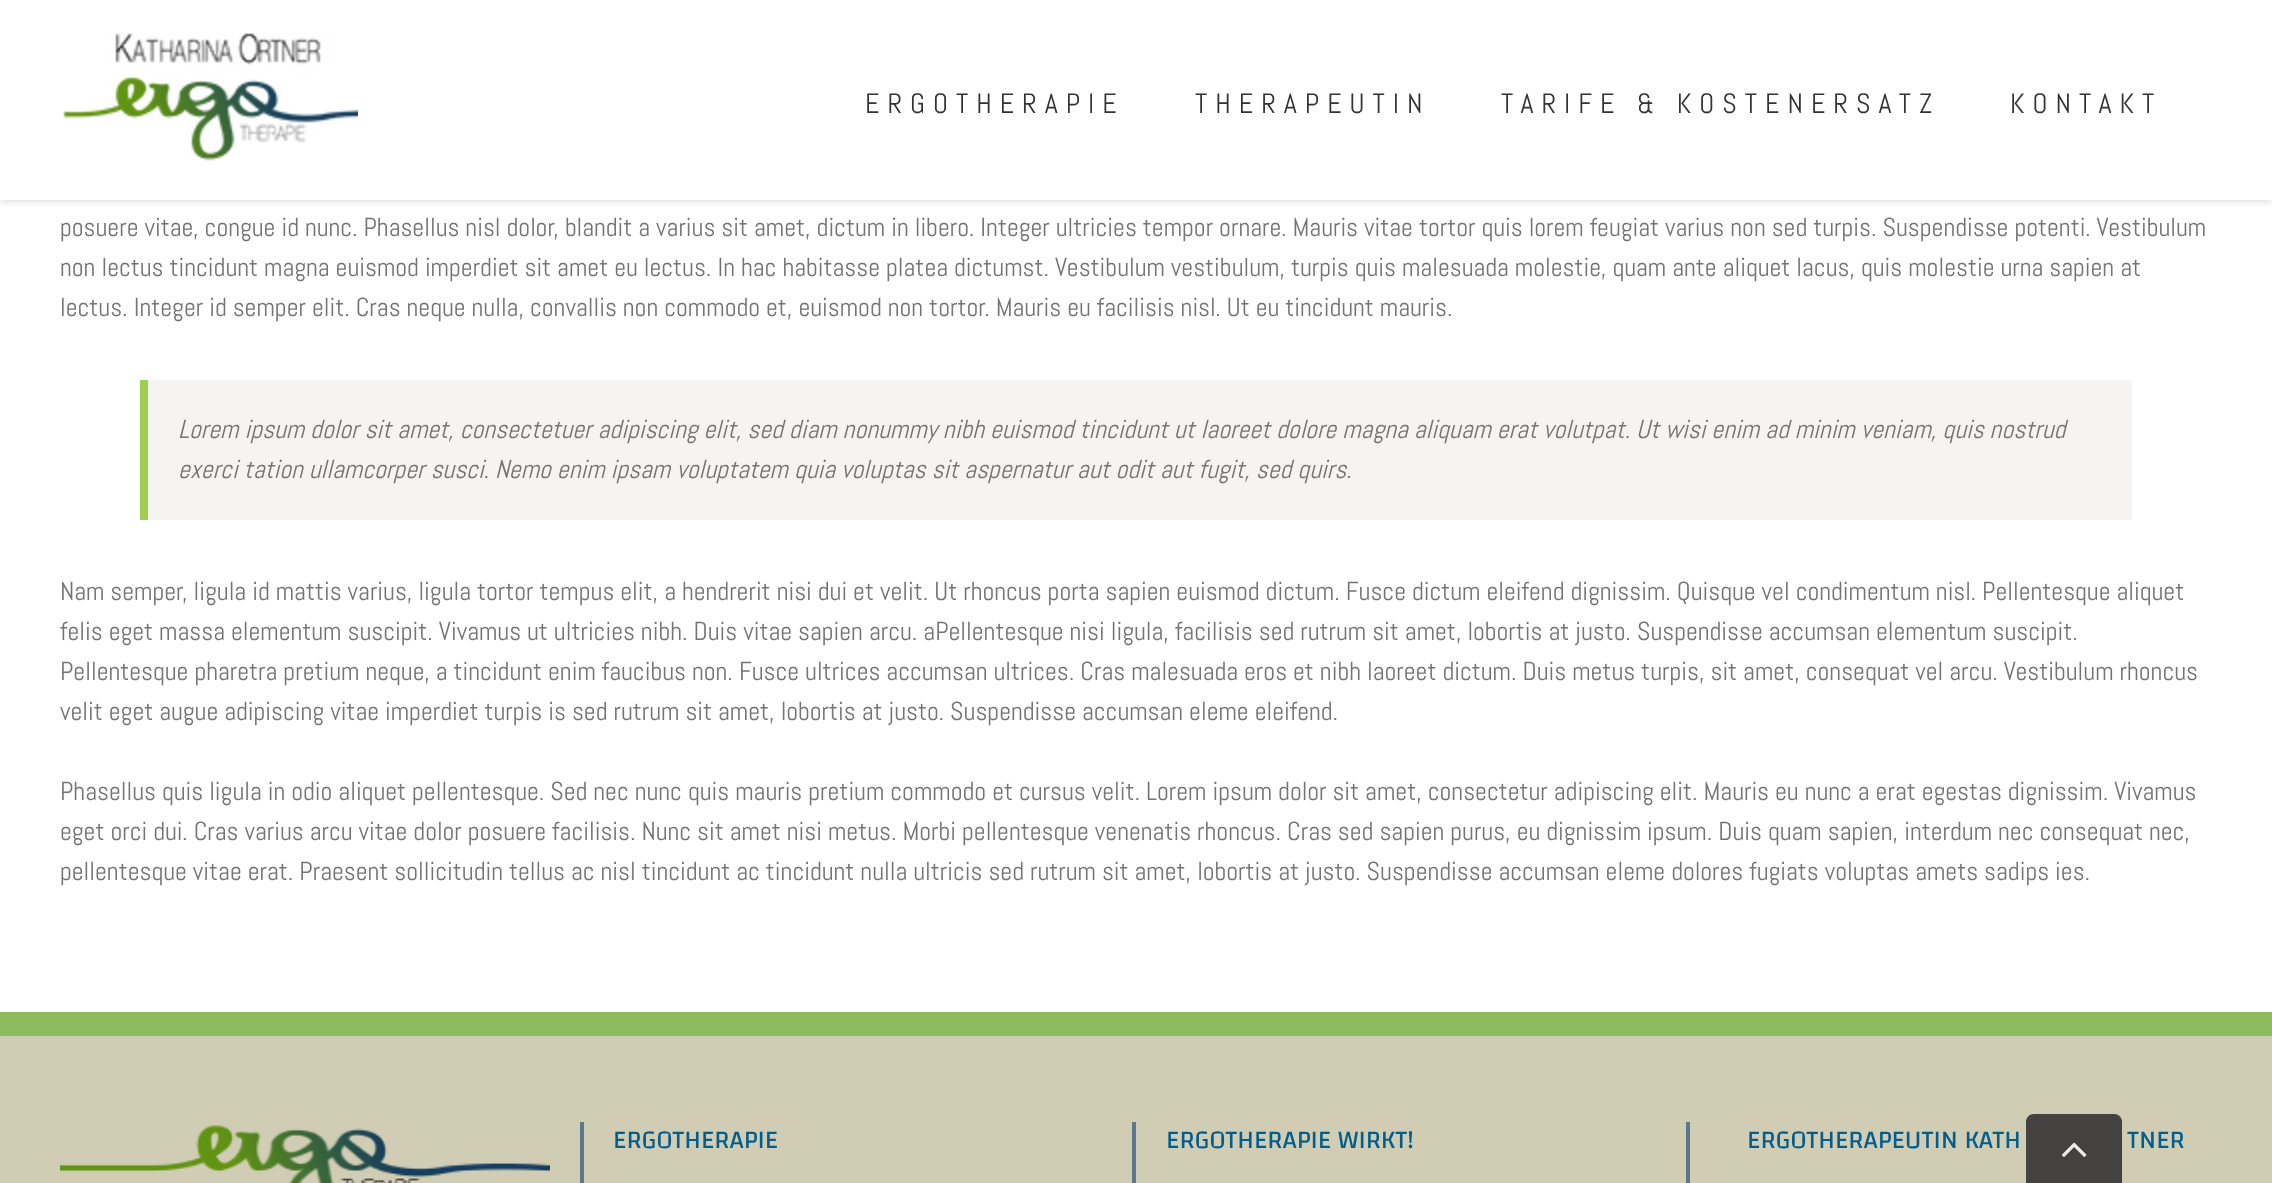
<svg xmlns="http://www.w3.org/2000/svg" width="2272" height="1183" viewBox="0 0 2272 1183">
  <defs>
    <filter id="blur1" x="-50%" y="-200%" width="200%" height="500%"><feGaussianBlur stdDeviation="3"/></filter>
  </defs>
  <rect width="100%" height="100%" fill="#ffffff"/>
  <rect x="0" y="2" width="2272" height="200" fill="#000000" fill-opacity="0.12" filter="url(#blur1)"/>
  <rect x="0" y="0" width="2272" height="200" fill="#ffffff"/>
  <image x="63" y="33" width="295" height="128" href="img1.png"/>
  <text x="865" y="113" font-family="Abel" font-size="28" letter-spacing="8" fill="#333333">ERGOTHERAPIE</text>
  <text x="1195" y="113" font-family="Abel" font-size="28" letter-spacing="8" fill="#333333">THERAPEUTIN</text>
  <text x="1501" y="113" font-family="Abel" font-size="28" letter-spacing="8" fill="#333333">TARIFE &amp; KOSTENERSATZ</text>
  <text x="2010" y="113" font-family="Abel" font-size="28" letter-spacing="8" fill="#333333">KONTAKT</text>
  <text x="60" y="236" font-family="Abel" font-size="26" fill="#747474">posuere vitae, congue id nunc. Phasellus nisl dolor, blandit a varius sit amet, dictum in libero. Integer ultricies tempor ornare. Mauris vitae tortor quis lorem feugiat varius non sed turpis. Suspendisse potenti. Vestibulum</text>
  <text x="60" y="276" font-family="Abel" font-size="26" fill="#747474">non lectus tincidunt magna euismod imperdiet sit amet eu lectus. In hac habitasse platea dictumst. Vestibulum vestibulum, turpis quis malesuada molestie, quam ante aliquet lacus, quis molestie urna sapien at</text>
  <text x="60" y="316" font-family="Abel" font-size="26" fill="#747474">lectus. Integer id semper elit. Cras neque nulla, convallis non commodo et, euismod non tortor. Mauris eu facilisis nisl. Ut eu tincidunt mauris.</text>
  <rect x="148" y="380" width="1984" height="140" fill="#f6f3f3"/>
  <rect x="140" y="380" width="8" height="140" fill="#a0ce4e"/>
  <text x="178" y="438" font-family="Abel" font-size="26" font-style="italic" fill="#747474">Lorem ipsum dolor sit amet, consectetuer adipiscing elit, sed diam nonummy nibh euismod tincidunt ut laoreet dolore magna aliquam erat volutpat. Ut wisi enim ad minim veniam, quis nostrud</text>
  <text x="178" y="478" font-family="Abel" font-size="26" font-style="italic" fill="#747474">exerci tation ullamcorper susci. Nemo enim ipsam voluptatem quia voluptas sit aspernatur aut odit aut fugit, sed quirs.</text>
  <text x="60" y="600" font-family="Abel" font-size="26" fill="#747474">Nam semper, ligula id mattis varius, ligula tortor tempus elit, a hendrerit nisi dui et velit. Ut rhoncus porta sapien euismod dictum. Fusce dictum eleifend dignissim. Quisque vel condimentum nisl. Pellentesque aliquet</text>
  <text x="60" y="640" font-family="Abel" font-size="26" fill="#747474">felis eget massa elementum suscipit. Vivamus ut ultricies nibh. Duis vitae sapien arcu. aPellentesque nisi ligula, facilisis sed rutrum sit amet, lobortis at justo. Suspendisse accumsan elementum suscipit.</text>
  <text x="60" y="680" font-family="Abel" font-size="26" fill="#747474">Pellentesque pharetra pretium neque, a tincidunt enim faucibus non. Fusce ultrices accumsan ultrices. Cras malesuada eros et nibh laoreet dictum. Duis metus turpis, sit amet, consequat vel arcu. Vestibulum rhoncus</text>
  <text x="60" y="720" font-family="Abel" font-size="26" fill="#747474">velit eget augue adipiscing vitae imperdiet turpis is sed rutrum sit amet, lobortis at justo. Suspendisse accumsan eleme eleifend.</text>
  <text x="60" y="800" font-family="Abel" font-size="26" fill="#747474">Phasellus quis ligula in odio aliquet pellentesque. Sed nec nunc quis mauris pretium commodo et cursus velit. Lorem ipsum dolor sit amet, consectetur adipiscing elit. Mauris eu nunc a erat egestas dignissim. Vivamus</text>
  <text x="60" y="840" font-family="Abel" font-size="26" fill="#747474">eget orci dui. Cras varius arcu vitae dolor posuere facilisis. Nunc sit amet nisi metus. Morbi pellentesque venenatis rhoncus. Cras sed sapien purus, eu dignissim ipsum. Duis quam sapien, interdum nec consequat nec,</text>
  <text x="60" y="880" font-family="Abel" font-size="26" fill="#747474">pellentesque vitae erat. Praesent sollicitudin tellus ac nisl tincidunt ac tincidunt nulla ultricis sed rutrum sit amet, lobortis at justo. Suspendisse accumsan eleme dolores fugiats voluptas amets sadips ies.</text>
  <rect x="0" y="1036" width="2272" height="147" fill="#d1cdb5"/>
  <rect x="0" y="1012" width="2272" height="24" fill="#8dba5d"/>
  <rect x="580" y="1122" width="4" height="61" fill="#5c788c"/>
  <image x="60" y="1125" width="490" height="58" href="img2.png"/>
  <rect x="1132" y="1122" width="4" height="61" fill="#5c788c"/>
  <text x="613" y="1148" font-family="Changa" font-size="26" fill="#045e8c">ERGOTHERAPIE</text>
  <rect x="1686" y="1122" width="4" height="61" fill="#5c788c"/>
  <text x="1166" y="1148" font-family="Changa" font-size="26" fill="#045e8c">ERGOTHERAPIE WIRKT!</text>
  <text x="1747" y="1148" font-family="Changa" font-size="26" fill="#045e8c">ERGOTHERAPEUTIN KATH</text>
  <text x="2127" y="1148" font-family="Changa" font-size="26" fill="#045e8c">TNER</text>
  <path d="M2034 1114H2114C2118.5 1114 2122 1117.5 2122 1122V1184H2026V1122C2026 1117.5 2029.5 1114 2034 1114Z" fill="#333333" fill-opacity="0.9"/>
  <image x="2062" y="1142" width="25" height="15" href="img3.png"/>
</svg>
